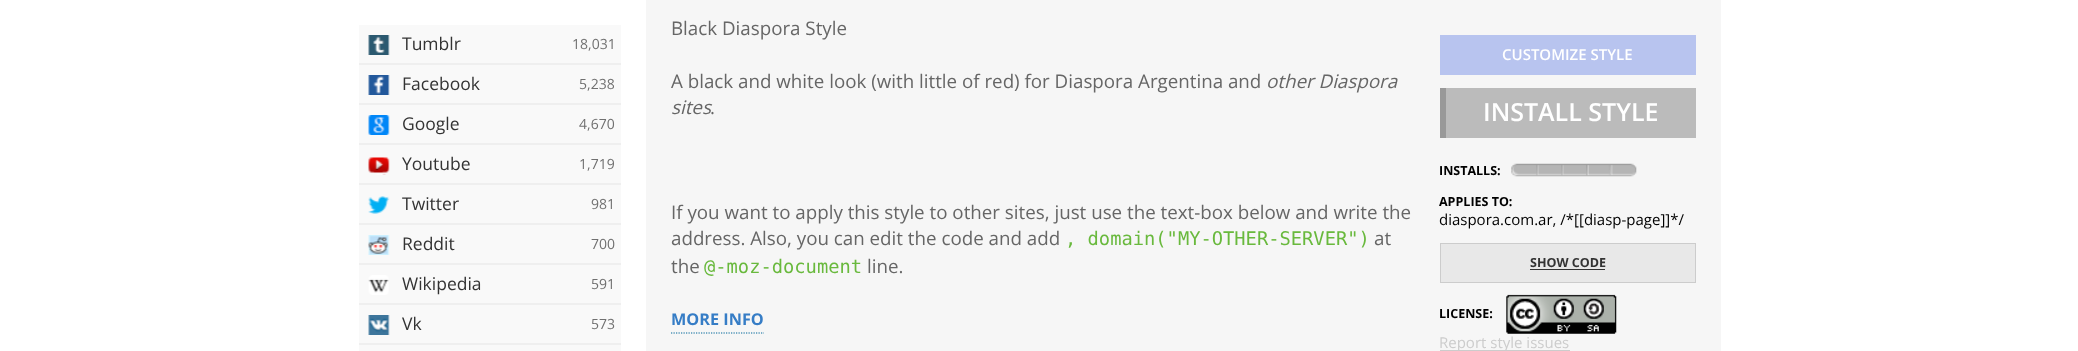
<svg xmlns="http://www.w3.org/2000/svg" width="2078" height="351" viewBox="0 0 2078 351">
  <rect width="100%" height="100%" fill="#ffffff"/>
  <rect x="359" y="25" width="262" height="38" fill="#f9f9f9"/>
  <rect x="359" y="63" width="262" height="2" fill="#efefef"/>
  <image x="368" y="35" width="22" height="20" href="img1.png"/>
  <text x="402" y="50" font-family="Open Sans" font-size="17.5" fill="#333333">Tumblr</text>
  <text x="572" y="49" font-family="Open Sans" font-size="14" fill="#707070">18,031</text>
  <rect x="359" y="65" width="262" height="38" fill="#f9f9f9"/>
  <rect x="359" y="103" width="262" height="2" fill="#efefef"/>
  <image x="368" y="75" width="22" height="20" href="img2.png"/>
  <text x="402" y="90" font-family="Open Sans" font-size="17.5" fill="#333333">Facebook</text>
  <text x="579" y="89" font-family="Open Sans" font-size="14" fill="#707070">5,238</text>
  <rect x="359" y="105" width="262" height="38" fill="#f9f9f9"/>
  <rect x="359" y="143" width="262" height="2" fill="#efefef"/>
  <image x="368" y="115" width="22" height="20" href="img3.png"/>
  <text x="402" y="130" font-family="Open Sans" font-size="17.5" fill="#333333">Google</text>
  <text x="579" y="129" font-family="Open Sans" font-size="14" fill="#707070">4,670</text>
  <rect x="359" y="145" width="262" height="38" fill="#f9f9f9"/>
  <rect x="359" y="183" width="262" height="2" fill="#efefef"/>
  <image x="368" y="157" width="22" height="18" href="img4.png"/>
  <text x="402" y="170" font-family="Open Sans" font-size="17.5" fill="#333333">Youtube</text>
  <text x="579" y="169" font-family="Open Sans" font-size="14" fill="#707070">1,719</text>
  <rect x="359" y="185" width="262" height="38" fill="#f9f9f9"/>
  <rect x="359" y="223" width="262" height="2" fill="#efefef"/>
  <image x="368" y="196" width="22" height="18" href="img5.png"/>
  <text x="402" y="210" font-family="Open Sans" font-size="17.5" fill="#333333">Twitter</text>
  <text x="591" y="209" font-family="Open Sans" font-size="14" fill="#707070">981</text>
  <rect x="359" y="225" width="262" height="38" fill="#f9f9f9"/>
  <rect x="359" y="263" width="262" height="2" fill="#efefef"/>
  <image x="368" y="235" width="22" height="20" href="img6.png"/>
  <text x="402" y="250" font-family="Open Sans" font-size="17.5" fill="#333333">Reddit</text>
  <text x="591" y="249" font-family="Open Sans" font-size="14" fill="#707070">700</text>
  <rect x="359" y="265" width="262" height="38" fill="#f9f9f9"/>
  <rect x="359" y="303" width="262" height="2" fill="#efefef"/>
  <image x="368" y="275" width="21" height="20" href="img7.png"/>
  <text x="402" y="290" font-family="Open Sans" font-size="17.5" fill="#333333">Wikipedia</text>
  <text x="591" y="289" font-family="Open Sans" font-size="14" fill="#707070">591</text>
  <rect x="359" y="305" width="262" height="38" fill="#f9f9f9"/>
  <rect x="359" y="343" width="262" height="2" fill="#efefef"/>
  <image x="368" y="315" width="22" height="20" href="img8.png"/>
  <text x="402" y="330" font-family="Open Sans" font-size="17.5" fill="#333333">Vk</text>
  <text x="591" y="329" font-family="Open Sans" font-size="14" fill="#707070">573</text>
  <rect x="359" y="345" width="262" height="6" fill="#f9f9f9"/>
  <rect x="646" y="0" width="1075" height="351" fill="#f6f6f6"/>
  <text x="671" y="35" font-family="Open Sans" font-size="18.75" fill="#666666">Black Diaspora Style</text>
  <text x="671" y="88" font-family="Open Sans" font-size="18.75" fill="#666666">A black and white look (with little of red) for Diaspora Argentina and</text>
  <text x="1266" y="88" font-family="Open Sans" font-size="18.75" font-style="italic" fill="#666666">other Diaspora</text>
  <text x="671" y="114" font-family="Open Sans" font-size="18.75" font-style="italic" fill="#666666">sites</text>
  <text x="710" y="114" font-family="Open Sans" font-size="18.75" fill="#666666">.</text>
  <text x="671" y="219" font-family="Open Sans" font-size="18.75" fill="#666666">If you want to apply this style to other sites, just use the text-box below and write the</text>
  <text x="671" y="245" font-family="Open Sans" font-size="18.75" fill="#666666">address. Also, you can edit the code and add</text>
  <text x="1065" y="245" font-family="DejaVu Sans Mono" font-size="18.75" fill="#69b93d">, domain("MY-OTHER-SERVER")</text>
  <text x="1374" y="245" font-family="Open Sans" font-size="18.75" fill="#666666">at</text>
  <text x="671" y="273" font-family="Open Sans" font-size="18.75" fill="#666666">the</text>
  <text x="704" y="273" font-family="DejaVu Sans Mono" font-size="18.75" fill="#69b93d">@-moz-document</text>
  <text x="867" y="273" font-family="Open Sans" font-size="18.75" fill="#666666">line.</text>
  <path d="M671 333H764" fill="none" stroke="#006699" stroke-width="1.2" stroke-dasharray="1.25 1.25"/>
  <text x="671" y="325" font-family="Open Sans" font-size="16.25" font-weight="bold" fill="#367dc6">MORE INFO</text>
  <rect x="1440" y="35" width="256" height="40" fill="#b8c4ef"/>
  <text x="1502" y="60" font-family="Open Sans" font-size="15" font-weight="600" fill="#ffffff">CUSTOMIZE STYLE</text>
  <rect x="1446" y="88" width="250" height="50" fill="#bbbbbb"/>
  <rect x="1440" y="88" width="6" height="50" fill="#999999"/>
  <text x="1483" y="121" font-family="Open Sans" font-size="25" font-weight="600" fill="#ffffff">INSTALL STYLE</text>
  <text x="1439" y="175" font-family="Open Sans" font-size="12.5" font-weight="bold" fill="#000000">INSTALLS:</text>
  <image x="1511" y="163" width="126" height="14" href="img9.png"/>
  <text x="1439" y="206" font-family="Open Sans" font-size="12.5" font-weight="bold" fill="#000000">APPLIES TO:</text>
  <text x="1439" y="225" font-family="Open Sans" font-size="15" fill="#000000">diaspora.com.ar, /*[[diasp-page]]*/</text>
  <rect x="1440.5" y="243.5" width="255" height="39" fill="#e8e8e8" stroke="#cccccc"/>
  <text x="1530" y="267" font-family="Open Sans" font-size="12.5" font-weight="bold" fill="#333333">SHOW CODE</text>
  <rect x="1530" y="269" width="75" height="1" fill="#333333"/>
  <text x="1439" y="318" font-family="Open Sans" font-size="12.5" font-weight="bold" fill="#000000">LICENSE:</text>
  <image x="1506" y="294" width="111" height="40" href="img10.png"/>
  <rect x="1440" y="350" width="130" height="1" fill="#cccccc"/>
  <text x="1439" y="348" font-family="Open Sans" font-size="15" fill="#cccccc">Report style issues</text>
</svg>
